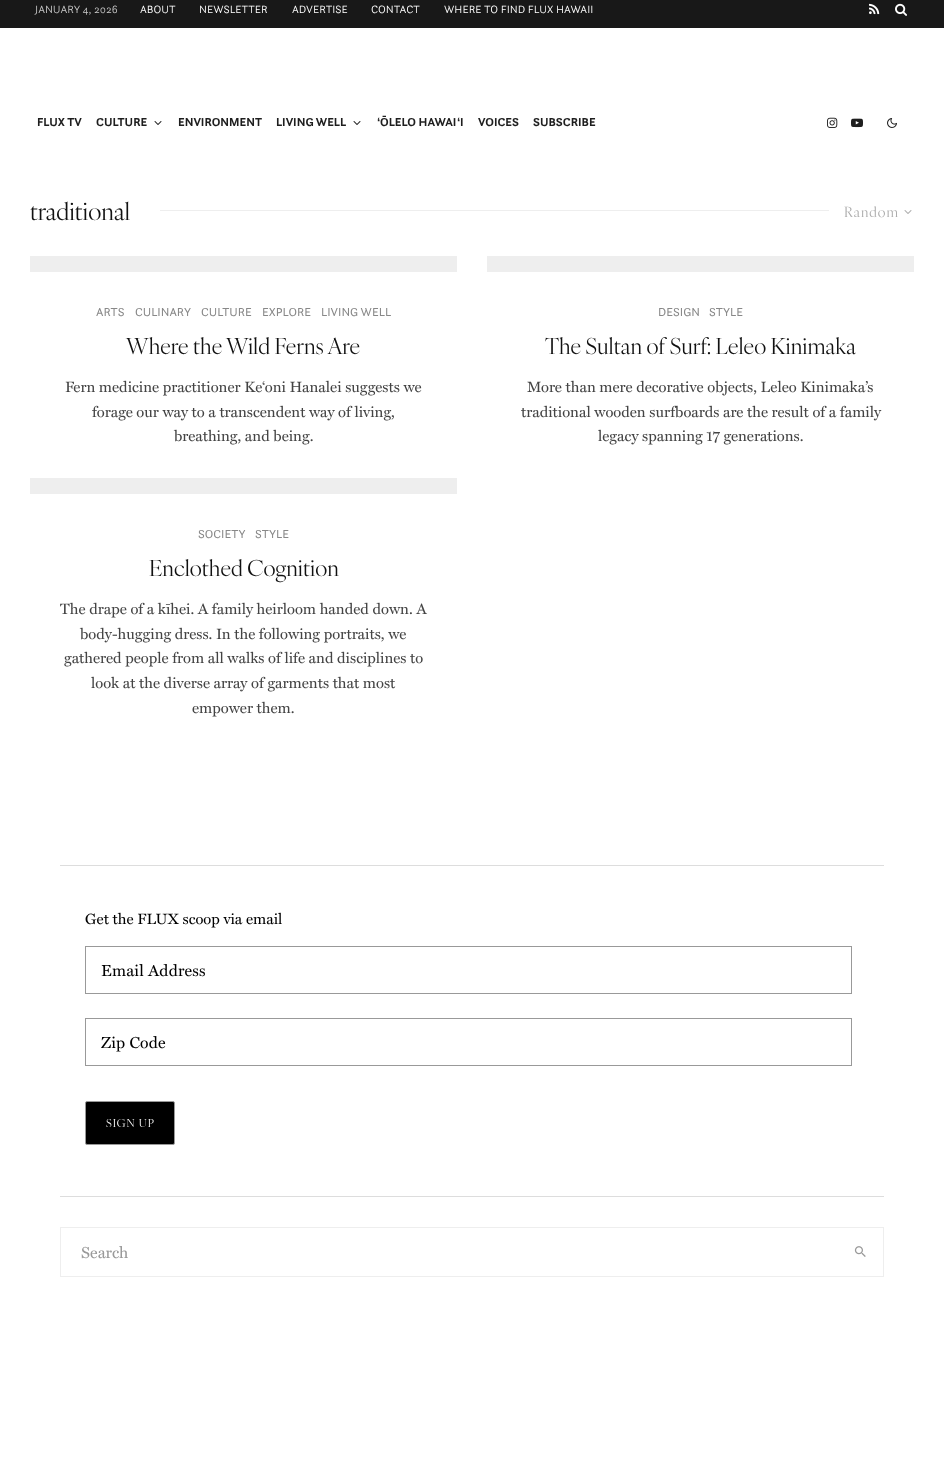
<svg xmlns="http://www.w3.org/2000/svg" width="944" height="1462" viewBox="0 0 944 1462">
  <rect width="100%" height="100%" fill="#ffffff"/>
  <rect x="0" y="0" width="944" height="28" fill="#181818"/>
  <text x="35" y="13" font-family="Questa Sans" font-size="11" font-weight="300" fill="#c9c9c9">JANUARY 4, 2026</text>
  <text x="140" y="13" font-family="Questa Sans" font-size="11" font-weight="300" fill="#ffffff">ABOUT</text>
  <text x="199" y="13" font-family="Questa Sans" font-size="11" font-weight="300" fill="#ffffff">NEWSLETTER</text>
  <text x="292" y="13" font-family="Questa Sans" font-size="11" font-weight="300" fill="#ffffff">ADVERTISE</text>
  <text x="371" y="13" font-family="Questa Sans" font-size="11" font-weight="300" fill="#ffffff">CONTACT</text>
  <text x="444" y="13" font-family="Questa Sans" font-size="11" font-weight="300" fill="#ffffff">WHERE TO FIND FLUX HAWAII</text>
  <image x="869" y="3" width="11" height="12" href="img1.png"/>
  <image x="895" y="3" width="12" height="13" href="img2.png"/>
  <text x="37" y="126" font-family="Questa Sans" font-size="12" font-weight="bold" fill="#1e1e1e">FLUX TV</text>
  <text x="96" y="126" font-family="Questa Sans" font-size="12" font-weight="bold" fill="#1e1e1e">CULTURE</text>
  <image x="154" y="121" width="8" height="4" href="img3.png"/>
  <text x="178" y="126" font-family="Questa Sans" font-size="12" font-weight="bold" fill="#1e1e1e">ENVIRONMENT</text>
  <text x="276" y="126" font-family="Questa Sans" font-size="12" font-weight="bold" fill="#1e1e1e">LIVING WELL</text>
  <image x="353" y="121" width="8" height="4" href="img3.png"/>
  <text x="377" y="126" font-family="Liberation Sans" font-size="12" font-weight="bold" fill="#1e1e1e">ʻ</text>
  <text x="380" y="126" font-family="Questa Sans" font-size="12" font-weight="bold" fill="#1e1e1e">ŌLELO HAWAI</text>
  <text x="457" y="126" font-family="Liberation Sans" font-size="12" font-weight="bold" fill="#1e1e1e">ʻ</text>
  <text x="460" y="126" font-family="Questa Sans" font-size="12" font-weight="bold" fill="#1e1e1e">I</text>
  <text x="478" y="126" font-family="Questa Sans" font-size="12" font-weight="bold" fill="#1e1e1e">VOICES</text>
  <text x="533" y="126" font-family="Questa Sans" font-size="12" font-weight="bold" fill="#1e1e1e">SUBSCRIBE</text>
  <image x="827" y="117" width="11" height="11" href="img4.png"/>
  <image x="851" y="118" width="12" height="10" href="img5.png"/>
  <image x="887" y="118" width="10" height="10" href="img6.png"/>
  <text x="30" y="220" font-family="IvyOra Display" font-size="24" fill="#111111">traditional</text>
  <rect x="160" y="210" width="669" height="1" fill="#eeeeee"/>
  <text x="844" y="217" font-family="IvyOra Display" font-size="14" letter-spacing="1" fill="#aaaaaa">Random</text>
  <image x="904" y="210" width="8" height="4" href="img7.png"/>
  <rect x="30" y="256" width="427" height="16" fill="#eeeeee"/>
  <text x="96" y="316" font-family="Questa Sans" font-size="12" fill="#888888">ARTS</text>
  <text x="135" y="316" font-family="Questa Sans" font-size="12" fill="#888888">CULINARY</text>
  <text x="201" y="316" font-family="Questa Sans" font-size="12" fill="#888888">CULTURE</text>
  <text x="262" y="316" font-family="Questa Sans" font-size="12" fill="#888888">EXPLORE</text>
  <text x="321" y="316" font-family="Questa Sans" font-size="12" fill="#888888">LIVING WELL</text>
  <text x="126" y="354" font-family="IvyOra Display" font-size="22" fill="#111111">Where the Wild Ferns Are</text>
  <text x="65" y="392" font-family="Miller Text" font-size="15" fill="#444444">Fern medicine practitioner Ke‘oni Hanalei suggests we</text>
  <text x="92" y="417" font-family="Miller Text" font-size="15" fill="#444444">forage our way to a transcendent way of living,</text>
  <text x="174" y="441" font-family="Miller Text" font-size="15" fill="#444444">breathing, and being.</text>
  <rect x="30" y="478" width="427" height="16" fill="#eeeeee"/>
  <text x="198" y="538" font-family="Questa Sans" font-size="12" fill="#888888">SOCIETY</text>
  <text x="255" y="538" font-family="Questa Sans" font-size="12" fill="#888888">STYLE</text>
  <text x="149" y="576" font-family="IvyOra Display" font-size="22" fill="#111111">Enclothed Cognition</text>
  <text x="60" y="614" font-family="Miller Text" font-size="15" fill="#444444">The drape of a kīhei. A family heirloom handed down. A</text>
  <text x="80" y="639" font-family="Miller Text" font-size="15" fill="#444444">body-hugging dress. In the following portraits, we</text>
  <text x="64" y="663" font-family="Miller Text" font-size="15" fill="#444444">gathered people from all walks of life and disciplines to</text>
  <text x="91" y="688" font-family="Miller Text" font-size="15" fill="#444444">look at the diverse array of garments that most</text>
  <text x="192" y="713" font-family="Miller Text" font-size="15" fill="#444444">empower them.</text>
  <rect x="487" y="256" width="427" height="16" fill="#eeeeee"/>
  <text x="658" y="316" font-family="Questa Sans" font-size="12" fill="#888888">DESIGN</text>
  <text x="709" y="316" font-family="Questa Sans" font-size="12" fill="#888888">STYLE</text>
  <text x="545" y="354" font-family="IvyOra Display" font-size="22" fill="#111111">The Sultan of Surf: Leleo Kinimaka</text>
  <text x="527" y="392" font-family="Miller Text" font-size="15" fill="#444444">More than mere decorative objects, Leleo Kinimaka’s</text>
  <text x="521" y="417" font-family="Miller Text" font-size="15" fill="#444444">traditional wooden surfboards are the result of a family</text>
  <text x="598" y="441" font-family="Miller Text" font-size="15" fill="#444444">legacy spanning 17 generations.</text>
  <rect x="60" y="865" width="824" height="1" fill="#dddddd"/>
  <rect x="60" y="1196" width="824" height="1" fill="#dddddd"/>
  <text x="85" y="924" font-family="Miller Text" font-size="15" fill="#000000">Get the FLUX scoop via email</text>
  <rect x="85.5" y="946.5" width="766" height="47" fill="none" stroke="#999999"/>
  <text x="101" y="976" font-family="Miller Text" font-size="16" letter-spacing="0.2" fill="#000000">Email Address</text>
  <rect x="85.5" y="1018.5" width="766" height="47" fill="none" stroke="#999999"/>
  <text x="101" y="1048" font-family="Miller Text" font-size="16" letter-spacing="0.2" fill="#000000">Zip Code</text>
  <rect x="85.5" y="1101.5" width="89" height="43" rx="1.5" fill="#000000" stroke="#999999"/>
  <text x="106" y="1127" font-family="IvyOra Display" font-size="11" letter-spacing="1" fill="#ffffff">SIGN UP</text>
  <rect x="60.5" y="1227.5" width="823" height="49" fill="none" stroke="#eeeeee"/>
  <text x="81" y="1258" font-family="Miller Text" font-size="16" fill="#999999">Search</text>
  <image x="854" y="1246" width="12" height="11" href="img8.png"/>
</svg>
